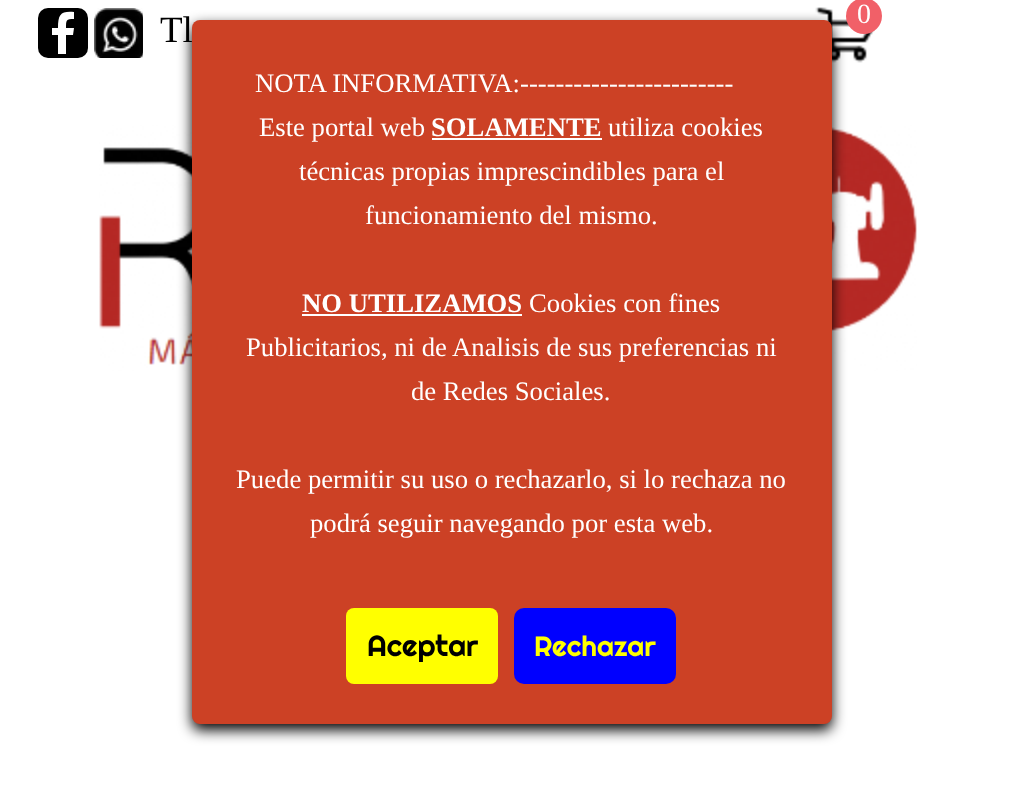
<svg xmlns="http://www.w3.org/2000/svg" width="1021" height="804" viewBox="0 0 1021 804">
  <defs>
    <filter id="blur1" x="-50%" y="-200%" width="200%" height="500%"><feGaussianBlur stdDeviation="7"/></filter>
  </defs>
  <rect width="100%" height="100%" fill="#ffffff"/>
  <rect x="38" y="8" width="50" height="50" rx="10" fill="#000000"/>
  <path d="M66 54V35H73L74 28H66C66 20 66 19 74 19V12C61 11 58 14 58 28H52V35H58V54Z" fill="#ffffff"/>
  <image x="94" y="8" width="49" height="50" href="img1.png"/>
  <text x="160" y="42" font-family="Liberation Serif" font-size="37" fill="#000000">Tl</text>
  <image x="815" y="7" width="60" height="56" href="img2.png"/>
  <circle cx="864" cy="16" r="18" fill="#f16068"/>
  <text x="857" y="23" font-family="Liberation Serif" font-size="28" fill="#ffffff">0</text>
  <image x="99" y="125" width="818" height="246" href="img3.png"/>
  <rect x="192" y="26" width="640" height="704" rx="8" fill="#000000" filter="url(#blur1)"/>
  <rect x="192" y="20" width="640" height="704" rx="8" fill="#cc4125"/>
  <text x="255" y="92" font-family="Liberation Serif" font-size="26.7" fill="#ffffff">NOTA INFORMATIVA:------------------------</text>
  <text x="259" y="136" font-family="Liberation Serif" font-size="26.7" fill="#ffffff">Este portal web</text>
  <text x="431" y="136" font-family="Liberation Serif" font-size="26.7" font-weight="bold" fill="#ffffff">SOLAMENTE</text>
  <rect x="432" y="138" width="170" height="2" fill="#ffffff"/>
  <text x="608" y="136" font-family="Liberation Serif" font-size="26.7" fill="#ffffff">utiliza cookies</text>
  <text x="299" y="180" font-family="Liberation Serif" font-size="26.7" fill="#ffffff">técnicas propias imprescindibles para el</text>
  <text x="365" y="224" font-family="Liberation Serif" font-size="26.7" fill="#ffffff">funcionamiento del mismo.</text>
  <text x="302" y="312" font-family="Liberation Serif" font-size="26.7" font-weight="bold" fill="#ffffff">NO UTILIZAMOS</text>
  <rect x="302" y="314" width="220" height="2" fill="#ffffff"/>
  <text x="529" y="312" font-family="Liberation Serif" font-size="26.7" fill="#ffffff">Cookies con fines</text>
  <text x="246" y="356" font-family="Liberation Serif" font-size="26.7" fill="#ffffff">Publicitarios, ni de Analisis de sus preferencias ni</text>
  <text x="411" y="400" font-family="Liberation Serif" font-size="26.7" fill="#ffffff">de Redes Sociales.</text>
  <text x="236" y="488" font-family="Liberation Serif" font-size="26.7" fill="#ffffff">Puede permitir su uso o rechazarlo, si lo rechaza no</text>
  <text x="310" y="532" font-family="Liberation Serif" font-size="26.7" fill="#ffffff">podrá seguir navegando por esta web.</text>
  <rect x="346" y="608" width="152" height="76" rx="8" fill="#ffff00"/>
  <text x="367" y="656" font-family="Righteous" font-size="29.5" fill="#000000">Aceptar</text>
  <rect x="514" y="608" width="162" height="76" rx="10" fill="#0000ff"/>
  <text x="534" y="656" font-family="Righteous" font-size="28" fill="#ffff00">Rechazar</text>
</svg>
